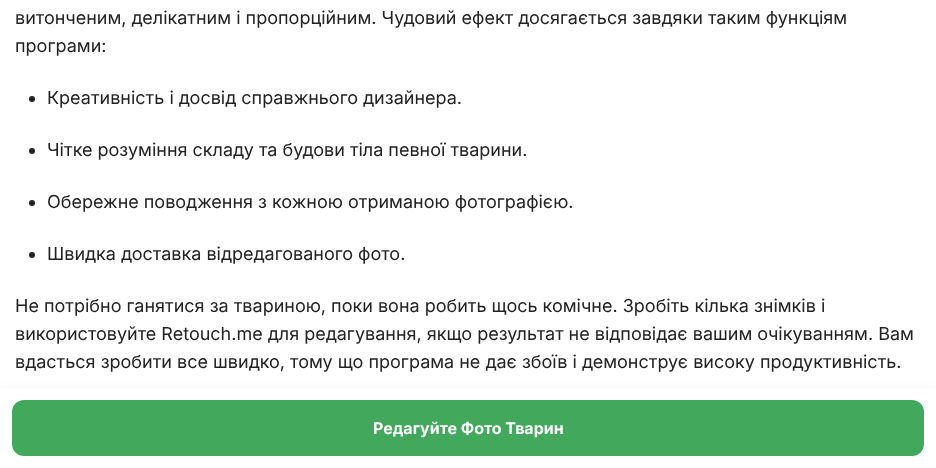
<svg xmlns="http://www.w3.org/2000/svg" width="936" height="468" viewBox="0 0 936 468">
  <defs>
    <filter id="blur1" x="-50%" y="-200%" width="200%" height="500%"><feGaussianBlur stdDeviation="8"/></filter>
  </defs>
  <rect width="100%" height="100%" fill="#ffffff"/>
  <text x="15" y="24" font-family="Inter" font-size="18" fill="#222222">витонченим, делікатним і пропорційним. Чудовий ефект досягається завдяки таким функціям</text>
  <text x="15" y="52" font-family="Inter" font-size="18" fill="#222222">програми:</text>
  <circle cx="32" cy="99" r="3" fill="#222222"/>
  <text x="47" y="104" font-family="Inter" font-size="18" fill="#222222">Креативність і досвід справжнього дизайнера.</text>
  <circle cx="32" cy="151" r="3" fill="#222222"/>
  <text x="47" y="156" font-family="Inter" font-size="18" fill="#222222">Чітке розуміння складу та будови тіла певної тварини.</text>
  <circle cx="32" cy="203" r="3" fill="#222222"/>
  <text x="47" y="208" font-family="Inter" font-size="18" fill="#222222">Обережне поводження з кожною отриманою фотографією.</text>
  <circle cx="32" cy="255" r="3" fill="#222222"/>
  <text x="47" y="260" font-family="Inter" font-size="18" fill="#222222">Швидка доставка відредагованого фото.</text>
  <text x="15" y="312" font-family="Inter" font-size="18" fill="#222222">Не потрібно ганятися за твариною, поки вона робить щось комічне. Зробіть кілька знімків і</text>
  <text x="15" y="340" font-family="Inter" font-size="18" fill="#222222">використовуйте Retouch.me для редагування, якщо результат не відповідає вашим очікуванням. Вам</text>
  <text x="15" y="368" font-family="Inter" font-size="18" fill="#222222">вдасться зробити все швидко, тому що програма не дає збоїв і демонструє високу продуктивність.</text>
  <rect x="0" y="396" width="936" height="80" fill="#000000" fill-opacity="0.15" filter="url(#blur1)"/>
  <rect x="0" y="388" width="936" height="80" fill="#ffffff"/>
  <rect x="12" y="400" width="912" height="56" rx="12" fill="#41a85c"/>
  <text x="373" y="434" font-family="Inter" font-size="16" font-weight="bold" fill="#ffffff">Редагуйте Фото Тварин</text>
</svg>
